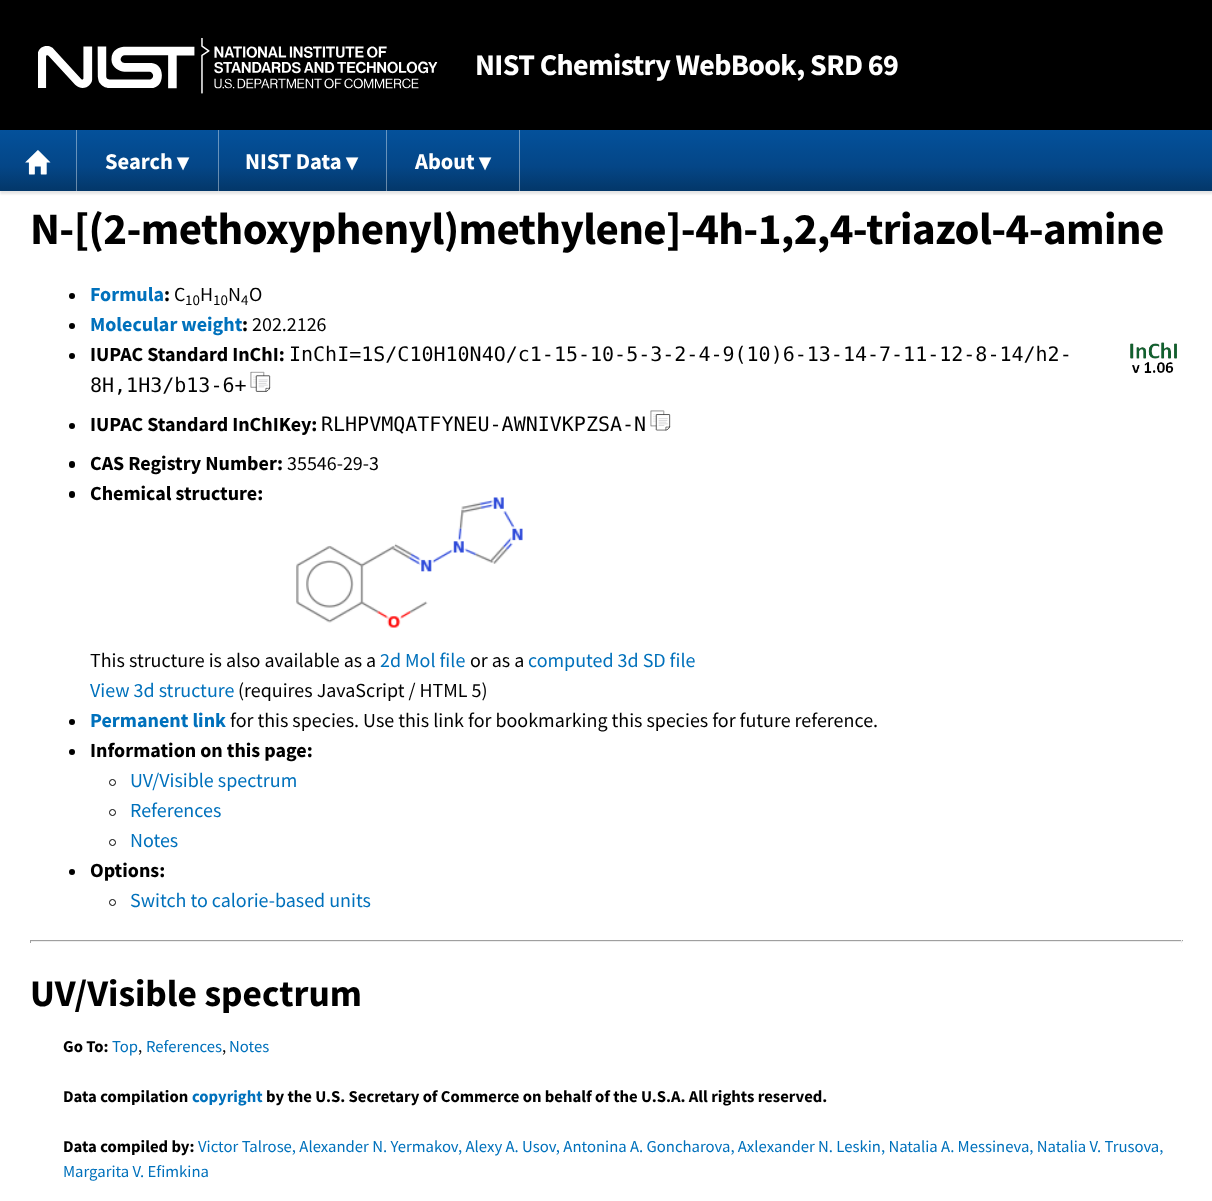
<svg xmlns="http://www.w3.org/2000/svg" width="1212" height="1201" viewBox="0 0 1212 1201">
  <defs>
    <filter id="blur1" x="-50%" y="-200%" width="200%" height="500%"><feGaussianBlur stdDeviation="1"/></filter>
    <linearGradient id="g1" gradientUnits="userSpaceOnUse" x1="606" y1="130" x2="606" y2="191"><stop offset="0" stop-color="#04519b"/><stop offset="0.6" stop-color="#044687"/><stop offset="1" stop-color="#033769"/></linearGradient>
    <linearGradient id="g2" gradientUnits="userSpaceOnUse" x1="606" y1="130" x2="606" y2="191"><stop offset="0" stop-color="#6897c3"/><stop offset="0.6" stop-color="#6890b7"/><stop offset="1" stop-color="#6887a5"/></linearGradient>
  </defs>
  <rect width="100%" height="100%" fill="#ffffff"/>
  <rect x="0" y="133" width="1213" height="61" fill="#000000" fill-opacity="0.1" filter="url(#blur1)"/>
  <rect x="0" y="0" width="1212" height="130" fill="#000000"/>
  <image x="38" y="38" width="400" height="56" href="img1.png"/>
  <text x="475" y="75" font-family="Source Sans Pro" font-size="30" font-weight="bold" letter-spacing="-0.62" fill="#ffffff">NIST Chemistry WebBook, SRD 69</text>
  <rect x="0" y="130" width="1212" height="61" fill="url(#g1)"/>
  <rect x="519" y="130" width="1" height="61" fill="url(#g2)"/>
  <rect x="386" y="130" width="1" height="61" fill="url(#g2)"/>
  <rect x="218" y="130" width="1" height="61" fill="url(#g2)"/>
  <rect x="76" y="130" width="1" height="61" fill="url(#g2)"/>
  <image x="25" y="150" width="26" height="25" href="img2.png"/>
  <text x="105" y="169" font-family="Source Sans Pro" font-size="22.5" font-weight="bold" fill="#ffffff">Search</text>
  <text x="176" y="169" font-family="Source Sans Pro" font-size="16" font-weight="bold" fill="#ffffff">▼</text>
  <text x="245" y="169" font-family="Source Sans Pro" font-size="22.5" font-weight="bold" fill="#ffffff">NIST Data</text>
  <text x="345" y="169" font-family="Source Sans Pro" font-size="16" font-weight="bold" fill="#ffffff">▼</text>
  <text x="415" y="169" font-family="Source Sans Pro" font-size="22.5" font-weight="bold" fill="#ffffff">About</text>
  <text x="478" y="169" font-family="Source Sans Pro" font-size="16" font-weight="bold" fill="#ffffff">▼</text>
  <text x="30" y="244" font-family="Source Sans Pro" font-size="45" font-weight="bold" letter-spacing="-0.62" fill="#000000">N-[(2-methoxyphenyl)methylene]-4h-1,2,4-triazol-4-amine</text>
  <circle cx="72" cy="296" r="3" fill="#000000"/>
  <text x="90" y="301" font-family="Source Sans Pro" font-size="20" font-weight="bold" fill="#0071bc">Formula</text>
  <text x="164" y="301" font-family="Source Sans Pro" font-size="20" font-weight="bold" fill="#000000">:</text>
  <text x="174" y="301" font-family="Source Sans Pro" font-size="20" fill="#000000">C</text>
  <text x="185" y="305" font-family="Source Sans Pro" font-size="15" fill="#000000">10</text>
  <text x="200" y="301" font-family="Source Sans Pro" font-size="20" fill="#000000">H</text>
  <text x="213" y="305" font-family="Source Sans Pro" font-size="15" fill="#000000">10</text>
  <text x="228" y="301" font-family="Source Sans Pro" font-size="20" fill="#000000">N</text>
  <text x="241" y="305" font-family="Source Sans Pro" font-size="15" fill="#000000">4</text>
  <text x="249" y="301" font-family="Source Sans Pro" font-size="20" fill="#000000">O</text>
  <circle cx="72" cy="326" r="3" fill="#000000"/>
  <text x="90" y="331" font-family="Source Sans Pro" font-size="20" font-weight="bold" fill="#0071bc">Molecular weight</text>
  <text x="242" y="331" font-family="Source Sans Pro" font-size="20" font-weight="bold" fill="#000000">:</text>
  <text x="252" y="331" font-family="Source Sans Pro" font-size="20" fill="#000000">202.2126</text>
  <circle cx="72" cy="356" r="3" fill="#000000"/>
  <text x="90" y="361" font-family="Source Sans Pro" font-size="20" font-weight="bold" fill="#000000">IUPAC Standard InChI:</text>
  <text x="289" y="361" font-family="DejaVu Sans Mono" font-size="20" fill="#000000">InChI=1S/C10H10N4O/c1-15-10-5-3-2-4-9(10)6-13-14-7-11-12-8-14/h2-</text>
  <text x="90" y="392" font-family="DejaVu Sans Mono" font-size="20" fill="#000000">8H,1H3/b13-6+</text>
  <image x="250" y="371" width="21" height="21" href="img3.png"/>
  <image x="1130" y="342" width="47" height="31" href="img4.png"/>
  <circle cx="72" cy="426" r="3" fill="#000000"/>
  <text x="90" y="431" font-family="Source Sans Pro" font-size="20" font-weight="bold" fill="#000000">IUPAC Standard InChIKey:</text>
  <text x="321" y="431" font-family="DejaVu Sans Mono" font-size="20" fill="#000000">RLHPVMQATFYNEU-AWNIVKPZSA-N</text>
  <image x="650" y="410" width="21" height="21" href="img5.png"/>
  <rect x="69" y="461" width="6" height="7" rx="3" fill="#000000"/>
  <text x="90" y="470" font-family="Source Sans Pro" font-size="20" font-weight="bold" fill="#000000">CAS Registry Number:</text>
  <text x="287" y="470" font-family="Source Sans Pro" font-size="20" fill="#000000">35546-29-3</text>
  <rect x="69" y="491" width="6" height="7" rx="3" fill="#000000"/>
  <text x="90" y="500" font-family="Source Sans Pro" font-size="20" font-weight="bold" fill="#000000">Chemical structure:</text>
  <image x="296" y="497" width="227" height="131" href="img6.png"/>
  <text x="90" y="667" font-family="Source Sans Pro" font-size="20" fill="#000000">This structure is also available as a</text>
  <text x="380" y="667" font-family="Source Sans Pro" font-size="20" fill="#0071bc">2d Mol file</text>
  <text x="470" y="667" font-family="Source Sans Pro" font-size="20" fill="#000000">or as a</text>
  <text x="528" y="667" font-family="Source Sans Pro" font-size="20" fill="#0071bc">computed 3d SD file</text>
  <text x="90" y="697" font-family="Source Sans Pro" font-size="20" fill="#0071bc">View 3d structure</text>
  <text x="238" y="697" font-family="Source Sans Pro" font-size="20" fill="#000000">(requires JavaScript / HTML 5)</text>
  <circle cx="72" cy="722" r="3" fill="#000000"/>
  <text x="90" y="727" font-family="Source Sans Pro" font-size="20" font-weight="bold" fill="#0071bc">Permanent link</text>
  <text x="230" y="727" font-family="Source Sans Pro" font-size="20" fill="#000000">for this species. Use this link for bookmarking this species for future reference.</text>
  <circle cx="72" cy="752" r="3" fill="#000000"/>
  <text x="90" y="757" font-family="Source Sans Pro" font-size="20" font-weight="bold" fill="#000000">Information on this page:</text>
  <circle cx="112.5" cy="782.5" r="3" fill="none" stroke="#000000"/>
  <text x="130" y="787" font-family="Source Sans Pro" font-size="20" fill="#0071bc">UV/Visible spectrum</text>
  <circle cx="112.5" cy="812.5" r="3" fill="none" stroke="#000000"/>
  <text x="130" y="817" font-family="Source Sans Pro" font-size="20" fill="#0071bc">References</text>
  <circle cx="112.5" cy="842.5" r="3" fill="none" stroke="#000000"/>
  <text x="130" y="847" font-family="Source Sans Pro" font-size="20" fill="#0071bc">Notes</text>
  <circle cx="72" cy="872" r="3" fill="#000000"/>
  <text x="90" y="877" font-family="Source Sans Pro" font-size="20" font-weight="bold" fill="#000000">Options:</text>
  <circle cx="112.5" cy="902.5" r="3" fill="none" stroke="#000000"/>
  <text x="130" y="907" font-family="Source Sans Pro" font-size="20" fill="#0071bc">Switch to calorie-based units</text>
  <rect x="30" y="940" width="1153" height="1" fill="#9f9f9f"/>
  <rect x="1181" y="940" width="1" height="3" fill="#eeeeee"/>
  <rect x="30" y="941" width="1153" height="1" fill="#eeeeee"/>
  <rect x="30" y="940" width="1" height="3" fill="#9f9f9f"/>
  <text x="30" y="1006" font-family="Source Sans Pro" font-size="37.5" font-weight="bold" fill="#000000">UV/Visible spectrum</text>
  <text x="63" y="1052" font-family="Source Sans Pro" font-size="16.67" font-weight="bold" fill="#000000">Go To:</text>
  <text x="112" y="1052" font-family="Source Sans Pro" font-size="16.67" fill="#0071bc">Top</text>
  <text x="138" y="1052" font-family="Source Sans Pro" font-size="16.67" fill="#000000">,</text>
  <text x="146" y="1052" font-family="Source Sans Pro" font-size="16.67" fill="#0071bc">References</text>
  <text x="222" y="1052" font-family="Source Sans Pro" font-size="16.67" fill="#000000">,</text>
  <text x="229" y="1052" font-family="Source Sans Pro" font-size="16.67" fill="#0071bc">Notes</text>
  <text x="63" y="1102" font-family="Source Sans Pro" font-size="16.67" font-weight="bold" fill="#000000">Data compilation</text>
  <text x="192" y="1102" font-family="Source Sans Pro" font-size="16.67" font-weight="bold" fill="#0071bc">copyright</text>
  <text x="266" y="1102" font-family="Source Sans Pro" font-size="16.67" font-weight="bold" fill="#000000">by the U.S. Secretary of Commerce on behalf of the U.S.A. All rights reserved.</text>
  <text x="63" y="1152" font-family="Source Sans Pro" font-size="16.67" font-weight="bold" fill="#000000">Data compiled by:</text>
  <text x="198" y="1152" font-family="Source Sans Pro" font-size="16.67" fill="#0071bc">Victor Talrose, Alexander N. Yermakov, Alexy A. Usov, Antonina A. Goncharova, Axlexander N. Leskin, Natalia A. Messineva, Natalia V. Trusova,</text>
  <text x="63" y="1177" font-family="Source Sans Pro" font-size="16.67" fill="#0071bc">Margarita V. Efimkina</text>
</svg>
